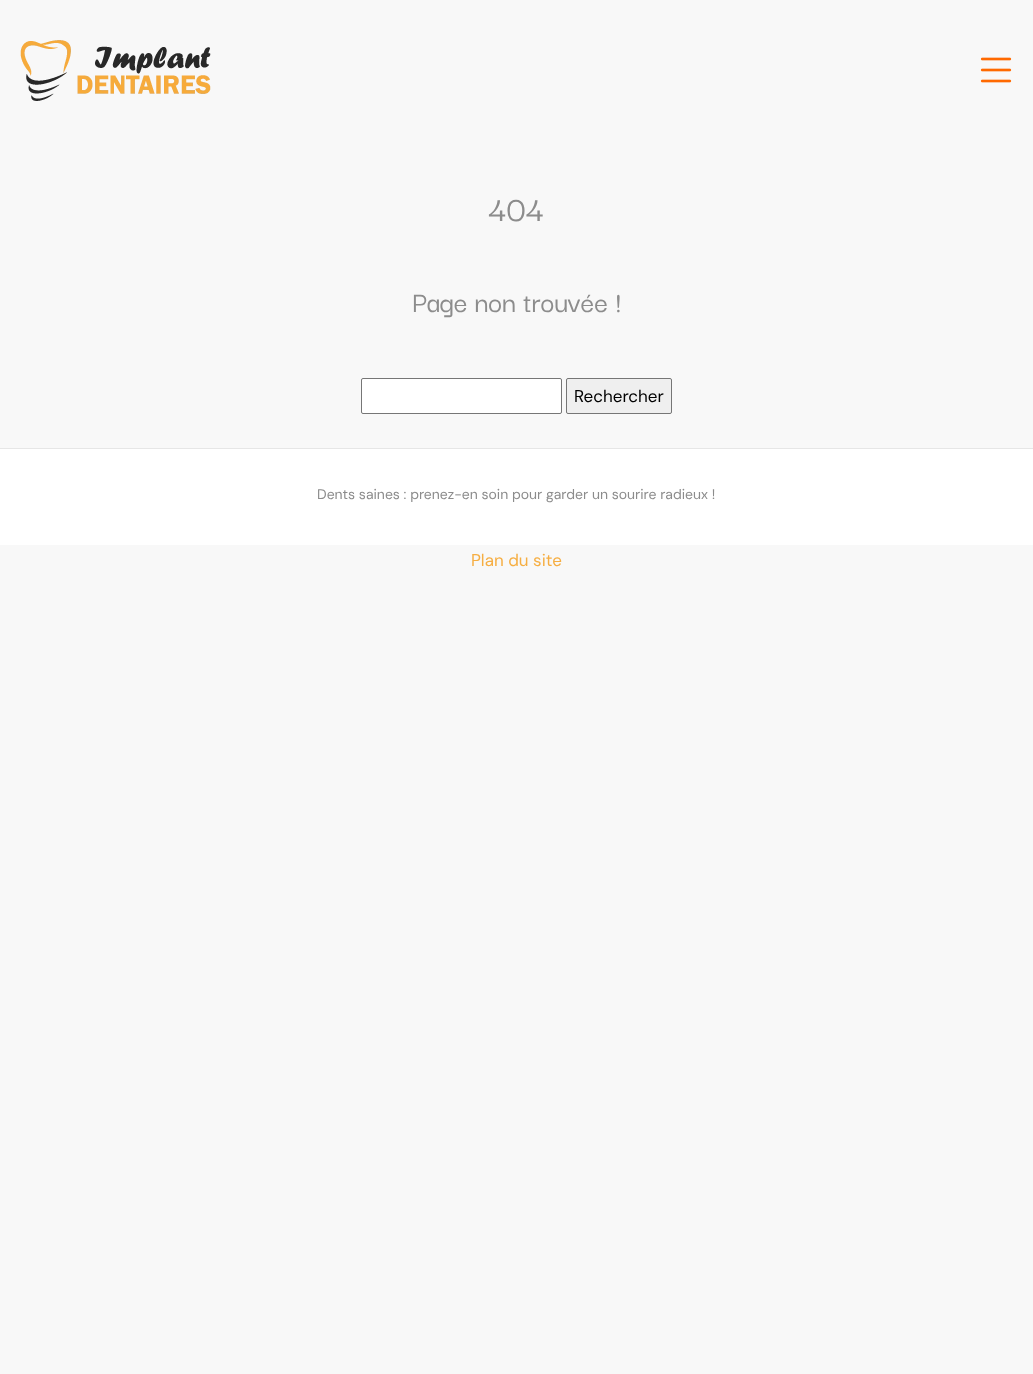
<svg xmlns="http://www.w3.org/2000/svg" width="1033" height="1374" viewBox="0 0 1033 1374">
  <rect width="100%" height="100%" fill="#f8f8f8"/>
  <image x="20" y="40" width="191" height="61" href="img1.png"/>
  <image x="980" y="57" width="32" height="26" href="img2.png"/>
  <text x="488" y="221" font-family="Darker Grotesque" font-size="37" font-weight="500" fill="#8c8c8c">404</text>
  <text x="412" y="312" font-family="Darker Grotesque" font-size="30.5" font-weight="500" fill="#8c8c8c">Page non trouvée !</text>
  <rect x="361.5" y="378.5" width="200" height="35" rx="1.5" fill="#ffffff" stroke="#767676"/>
  <rect x="566.5" y="378.5" width="105" height="35" rx="1.5" fill="#efefef" stroke="#767676"/>
  <text x="574" y="402" font-family="DM Sans" font-size="17" fill="#000000">Rechercher</text>
  <rect x="0" y="449" width="1033" height="96" fill="#ffffff"/>
  <rect x="0" y="448" width="1033" height="1" fill="#e6e6e6"/>
  <text x="317" y="499" font-family="DM Sans" font-size="14" fill="#8c8c8c">Dents saines : prenez-en soin pour garder un sourire radieux !</text>
  <text x="471" y="566" font-family="DM Sans" font-size="17" fill="#f6ae42">Plan du site</text>
</svg>
